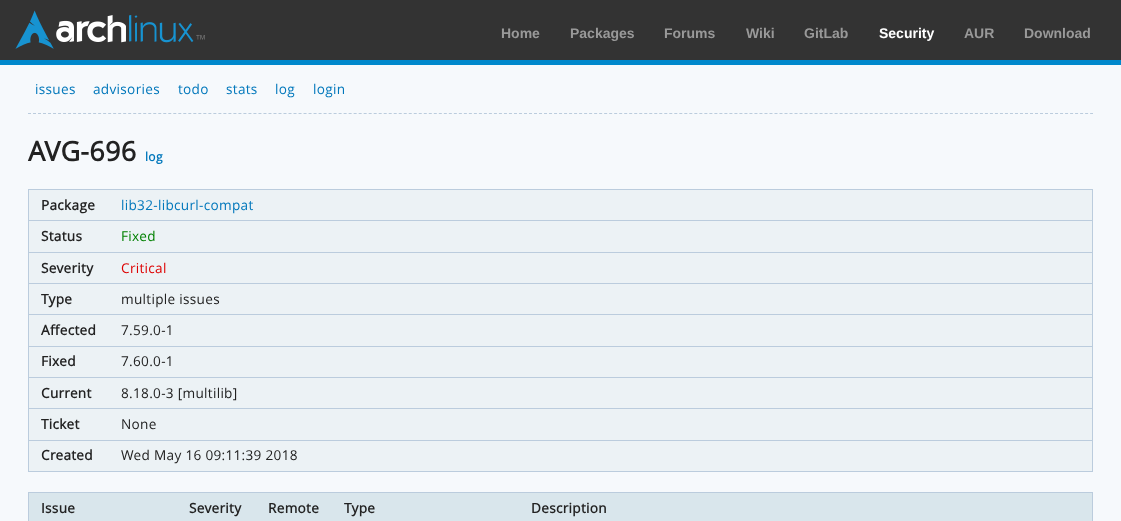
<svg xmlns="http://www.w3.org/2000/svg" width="1121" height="521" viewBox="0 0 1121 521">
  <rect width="100%" height="100%" fill="#f6f9fc"/>
  <rect x="0" y="0" width="1121" height="60" fill="#333333"/>
  <rect x="0" y="60" width="1121" height="5" fill="#0088cc"/>
  <image x="15" y="10" width="190" height="39" href="img1.png"/>
  <text x="501" y="38" font-family="Liberation Sans" font-size="14" font-weight="bold" fill="#999999">Home</text>
  <text x="570" y="38" font-family="Liberation Sans" font-size="14" font-weight="bold" fill="#999999">Packages</text>
  <text x="664" y="38" font-family="Liberation Sans" font-size="14" font-weight="bold" fill="#999999">Forums</text>
  <text x="746" y="38" font-family="Liberation Sans" font-size="14" font-weight="bold" fill="#999999">Wiki</text>
  <text x="804" y="38" font-family="Liberation Sans" font-size="14" font-weight="bold" fill="#999999">GitLab</text>
  <text x="879" y="38" font-family="Liberation Sans" font-size="14" font-weight="bold" fill="#ffffff">Security</text>
  <text x="964" y="38" font-family="Liberation Sans" font-size="14" font-weight="bold" fill="#999999">AUR</text>
  <text x="1024" y="38" font-family="Liberation Sans" font-size="14" font-weight="bold" fill="#999999">Download</text>
  <text x="35" y="94" font-family="Open Sans" font-size="13.6" letter-spacing="0.3" fill="#0077bb">issues</text>
  <text x="93" y="94" font-family="Open Sans" font-size="13.6" letter-spacing="0.3" fill="#0077bb">advisories</text>
  <text x="178" y="94" font-family="Open Sans" font-size="13.6" letter-spacing="0.3" fill="#0077bb">todo</text>
  <text x="226" y="94" font-family="Open Sans" font-size="13.6" letter-spacing="0.3" fill="#0077bb">stats</text>
  <text x="275" y="94" font-family="Open Sans" font-size="13.6" letter-spacing="0.3" fill="#0077bb">log</text>
  <text x="313" y="94" font-family="Open Sans" font-size="13.6" letter-spacing="0.3" fill="#0077bb">login</text>
  <path d="M28 113.5H1093" fill="none" stroke="#bbccdd" stroke-dasharray="3 2.01"/>
  <text x="28" y="161" font-family="Open Sans" font-size="27" font-weight="bold" letter-spacing="0.3" fill="#222222">AVG-696</text>
  <text x="145" y="161" font-family="Open Sans" font-size="12" font-weight="bold" letter-spacing="0.3" fill="#0077bb">log</text>
  <rect x="29" y="190" width="1063" height="281" fill="#ecf2f5"/>
  <rect x="28" y="189" width="1065" height="1" fill="#bbccdd"/>
  <rect x="1092" y="189" width="1" height="283" fill="#bbccdd"/>
  <rect x="28" y="471" width="1065" height="1" fill="#bbccdd"/>
  <rect x="28" y="189" width="1" height="283" fill="#bbccdd"/>
  <text x="41" y="210" font-family="Open Sans" font-size="13.6" font-weight="bold" letter-spacing="0.3" fill="#222222">Package</text>
  <text x="121" y="210" font-family="Open Sans" font-size="13.6" letter-spacing="0.3" fill="#0077bb">lib32-libcurl-compat</text>
  <text x="41" y="241" font-family="Open Sans" font-size="13.6" font-weight="bold" letter-spacing="0.3" fill="#222222">Status</text>
  <rect x="28" y="220" width="1065" height="1" fill="#bbccdd"/>
  <text x="121" y="241" font-family="Open Sans" font-size="13.6" letter-spacing="0.3" fill="#008000">Fixed</text>
  <text x="41" y="273" font-family="Open Sans" font-size="13.6" font-weight="bold" letter-spacing="0.3" fill="#222222">Severity</text>
  <rect x="28" y="252" width="1065" height="1" fill="#bbccdd"/>
  <text x="121" y="273" font-family="Open Sans" font-size="13.6" letter-spacing="0.3" fill="#dd0000">Critical</text>
  <text x="41" y="304" font-family="Open Sans" font-size="13.6" font-weight="bold" letter-spacing="0.3" fill="#222222">Type</text>
  <rect x="28" y="283" width="1065" height="1" fill="#bbccdd"/>
  <text x="121" y="304" font-family="Open Sans" font-size="13.6" letter-spacing="0.3" fill="#222222">multiple issues</text>
  <text x="41" y="335" font-family="Open Sans" font-size="13.6" font-weight="bold" letter-spacing="0.3" fill="#222222">Affected</text>
  <rect x="28" y="314" width="1065" height="1" fill="#bbccdd"/>
  <text x="121" y="335" font-family="Open Sans" font-size="13.6" letter-spacing="0.3" fill="#222222">7.59.0-1</text>
  <text x="41" y="366" font-family="Open Sans" font-size="13.6" font-weight="bold" letter-spacing="0.3" fill="#222222">Fixed</text>
  <rect x="28" y="346" width="1065" height="1" fill="#bbccdd"/>
  <text x="121" y="366" font-family="Open Sans" font-size="13.6" letter-spacing="0.3" fill="#222222">7.60.0-1</text>
  <text x="41" y="398" font-family="Open Sans" font-size="13.6" font-weight="bold" letter-spacing="0.3" fill="#222222">Current</text>
  <rect x="28" y="377" width="1065" height="1" fill="#bbccdd"/>
  <text x="121" y="398" font-family="Open Sans" font-size="13.6" letter-spacing="0.3" fill="#222222">8.18.0-3 [multilib]</text>
  <text x="41" y="429" font-family="Open Sans" font-size="13.6" font-weight="bold" letter-spacing="0.3" fill="#222222">Ticket</text>
  <rect x="28" y="408" width="1065" height="1" fill="#bbccdd"/>
  <text x="121" y="429" font-family="Open Sans" font-size="13.6" letter-spacing="0.3" fill="#222222">None</text>
  <text x="41" y="460" font-family="Open Sans" font-size="13.6" font-weight="bold" letter-spacing="0.3" fill="#222222">Created</text>
  <rect x="28" y="440" width="1065" height="1" fill="#bbccdd"/>
  <text x="121" y="460" font-family="Open Sans" font-size="13.6" letter-spacing="0.3" fill="#222222">Wed May 16 09:11:39 2018</text>
  <rect x="28" y="492" width="1065" height="1" fill="#bbccdd"/>
  <rect x="1092" y="492" width="1" height="29" fill="#bbccdd"/>
  <rect x="28" y="492" width="1" height="29" fill="#bbccdd"/>
  <rect x="29" y="493" width="1063" height="28" fill="#d9e6ec"/>
  <text x="41" y="513" font-family="Open Sans" font-size="13.6" font-weight="bold" letter-spacing="0.3" fill="#222222">Issue</text>
  <text x="189" y="513" font-family="Open Sans" font-size="13.6" font-weight="bold" letter-spacing="0.3" fill="#222222">Severity</text>
  <text x="268" y="513" font-family="Open Sans" font-size="13.6" font-weight="bold" letter-spacing="0.3" fill="#222222">Remote</text>
  <text x="344" y="513" font-family="Open Sans" font-size="13.6" font-weight="bold" letter-spacing="0.3" fill="#222222">Type</text>
  <text x="531" y="513" font-family="Open Sans" font-size="13.6" font-weight="bold" letter-spacing="0.3" fill="#222222">Description</text>
</svg>
